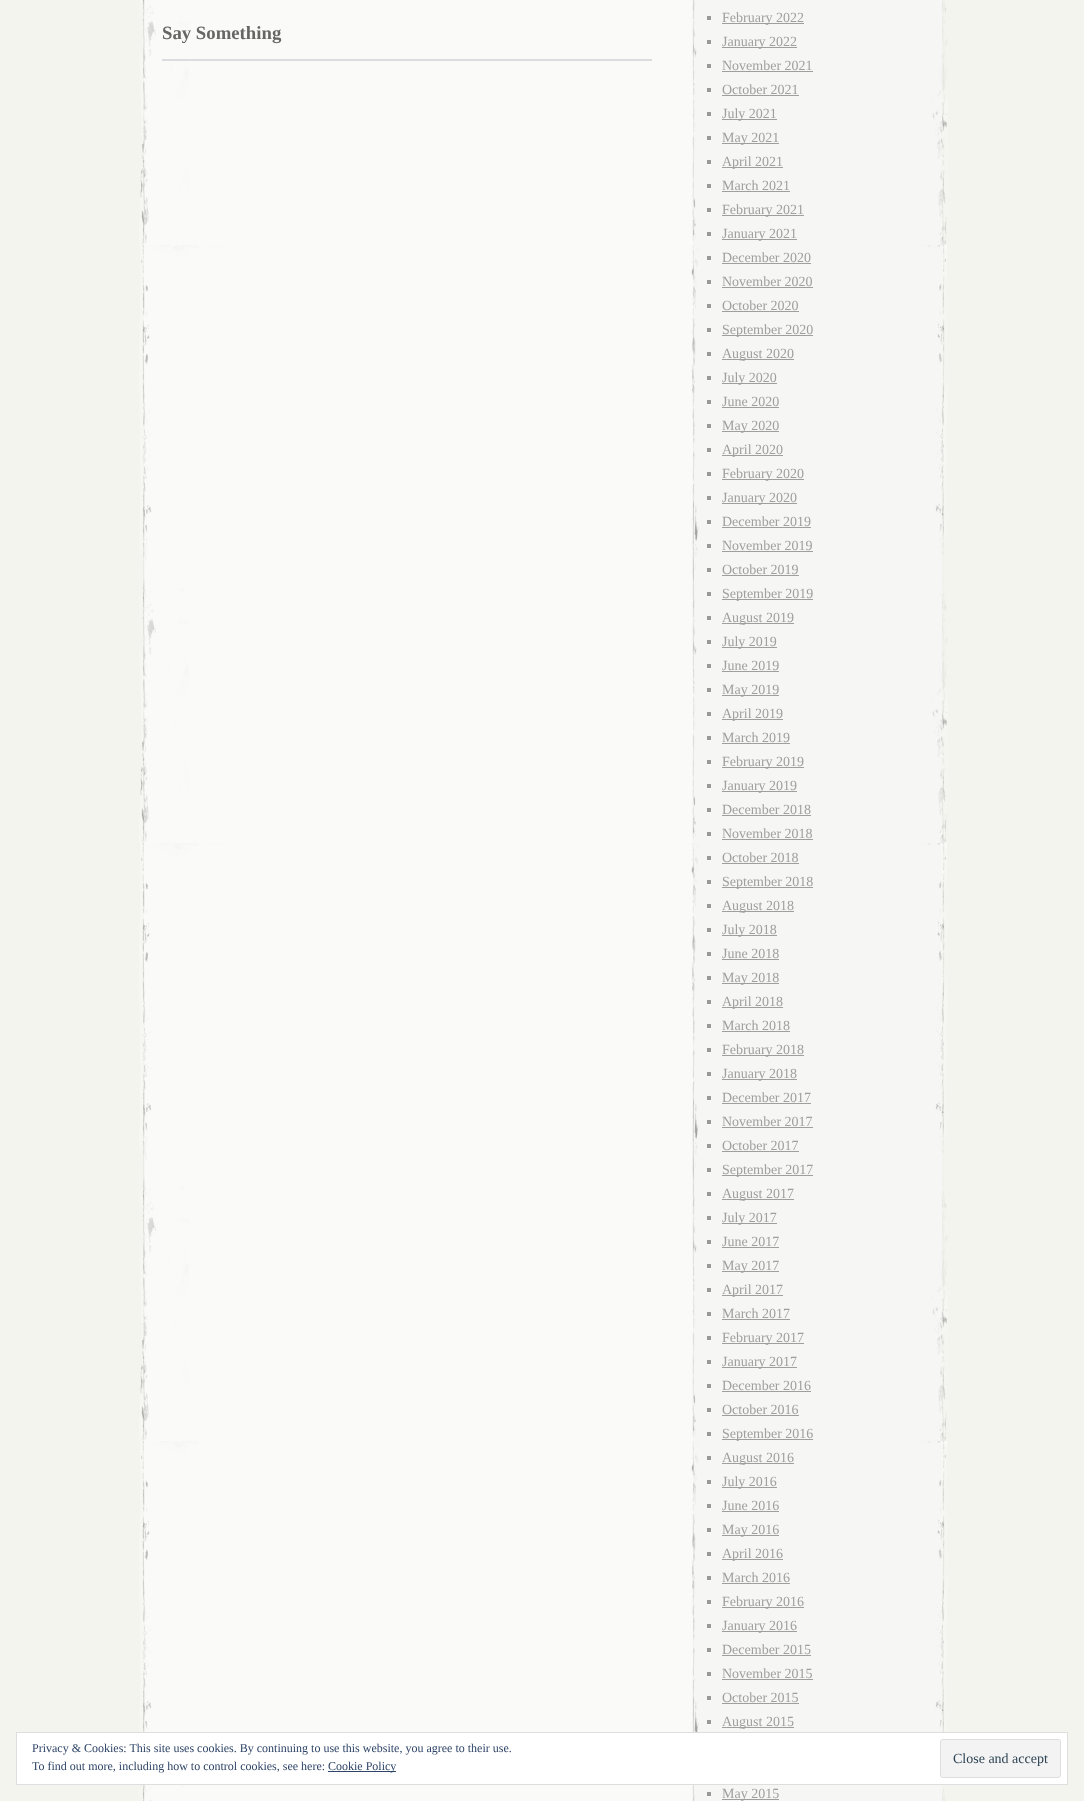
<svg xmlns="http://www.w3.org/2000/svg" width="1084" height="1801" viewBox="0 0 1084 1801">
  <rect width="100%" height="100%" fill="#f3f4ee"/>
  <image x="139" y="0" width="809" height="1801" href="img1.png"/>
  <text x="162" y="39" font-family="Liberation Serif" font-size="18.75" font-weight="bold" fill="#666666">Say Something</text>
  <rect x="162" y="59" width="490" height="2" fill="#dcdcde"/>
  <rect x="707" y="16" width="4" height="4" fill="#999999"/>
  <rect x="722" y="23" width="82" height="1" fill="#9f9f9f"/>
  <text x="722" y="22" font-family="Liberation Serif" font-size="14" fill="#9f9f9f">February 2022</text>
  <rect x="707" y="40" width="4" height="4" fill="#999999"/>
  <rect x="722" y="47" width="75" height="1" fill="#9f9f9f"/>
  <text x="722" y="46" font-family="Liberation Serif" font-size="14" fill="#9f9f9f">January 2022</text>
  <rect x="707" y="64" width="4" height="4" fill="#999999"/>
  <text x="722" y="70" font-family="Liberation Serif" font-size="14" fill="#9f9f9f">November 2021</text>
  <rect x="722" y="71" width="91" height="1" fill="#9f9f9f"/>
  <rect x="707" y="88" width="4" height="4" fill="#999999"/>
  <text x="722" y="94" font-family="Liberation Serif" font-size="14" fill="#9f9f9f">October 2021</text>
  <rect x="722" y="95" width="77" height="1" fill="#9f9f9f"/>
  <rect x="707" y="112" width="4" height="4" fill="#999999"/>
  <rect x="722" y="119" width="55" height="1" fill="#9f9f9f"/>
  <text x="722" y="118" font-family="Liberation Serif" font-size="14" fill="#9f9f9f">July 2021</text>
  <rect x="707" y="136" width="4" height="4" fill="#999999"/>
  <rect x="722" y="143" width="57" height="1" fill="#9f9f9f"/>
  <text x="722" y="142" font-family="Liberation Serif" font-size="14" fill="#9f9f9f">May 2021</text>
  <rect x="707" y="160" width="4" height="4" fill="#999999"/>
  <rect x="722" y="167" width="61" height="1" fill="#9f9f9f"/>
  <text x="722" y="166" font-family="Liberation Serif" font-size="14" fill="#9f9f9f">April 2021</text>
  <rect x="707" y="184" width="4" height="4" fill="#999999"/>
  <text x="722" y="190" font-family="Liberation Serif" font-size="14" fill="#9f9f9f">March 2021</text>
  <rect x="722" y="191" width="68" height="1" fill="#9f9f9f"/>
  <rect x="707" y="208" width="4" height="4" fill="#999999"/>
  <rect x="722" y="215" width="82" height="1" fill="#9f9f9f"/>
  <text x="722" y="214" font-family="Liberation Serif" font-size="14" fill="#9f9f9f">February 2021</text>
  <rect x="707" y="232" width="4" height="4" fill="#999999"/>
  <rect x="722" y="239" width="75" height="1" fill="#9f9f9f"/>
  <text x="722" y="238" font-family="Liberation Serif" font-size="14" fill="#9f9f9f">January 2021</text>
  <rect x="707" y="256" width="4" height="4" fill="#999999"/>
  <text x="722" y="262" font-family="Liberation Serif" font-size="14" fill="#9f9f9f">December 2020</text>
  <rect x="722" y="263" width="89" height="1" fill="#9f9f9f"/>
  <rect x="707" y="280" width="4" height="4" fill="#999999"/>
  <text x="722" y="286" font-family="Liberation Serif" font-size="14" fill="#9f9f9f">November 2020</text>
  <rect x="722" y="287" width="91" height="1" fill="#9f9f9f"/>
  <rect x="707" y="304" width="4" height="4" fill="#999999"/>
  <text x="722" y="310" font-family="Liberation Serif" font-size="14" fill="#9f9f9f">October 2020</text>
  <rect x="722" y="311" width="77" height="1" fill="#9f9f9f"/>
  <rect x="707" y="328" width="4" height="4" fill="#999999"/>
  <rect x="722" y="335" width="91" height="1" fill="#9f9f9f"/>
  <text x="722" y="334" font-family="Liberation Serif" font-size="14" fill="#9f9f9f">September 2020</text>
  <rect x="707" y="352" width="4" height="4" fill="#999999"/>
  <rect x="722" y="359" width="72" height="1" fill="#9f9f9f"/>
  <text x="722" y="358" font-family="Liberation Serif" font-size="14" fill="#9f9f9f">August 2020</text>
  <rect x="707" y="376" width="4" height="4" fill="#999999"/>
  <rect x="722" y="383" width="55" height="1" fill="#9f9f9f"/>
  <text x="722" y="382" font-family="Liberation Serif" font-size="14" fill="#9f9f9f">July 2020</text>
  <rect x="707" y="400" width="4" height="4" fill="#999999"/>
  <text x="722" y="406" font-family="Liberation Serif" font-size="14" fill="#9f9f9f">June 2020</text>
  <rect x="722" y="407" width="57" height="1" fill="#9f9f9f"/>
  <rect x="707" y="424" width="4" height="4" fill="#999999"/>
  <rect x="722" y="431" width="57" height="1" fill="#9f9f9f"/>
  <text x="722" y="430" font-family="Liberation Serif" font-size="14" fill="#9f9f9f">May 2020</text>
  <rect x="707" y="448" width="4" height="4" fill="#999999"/>
  <rect x="722" y="455" width="61" height="1" fill="#9f9f9f"/>
  <text x="722" y="454" font-family="Liberation Serif" font-size="14" fill="#9f9f9f">April 2020</text>
  <rect x="707" y="472" width="4" height="4" fill="#999999"/>
  <rect x="722" y="479" width="82" height="1" fill="#9f9f9f"/>
  <text x="722" y="478" font-family="Liberation Serif" font-size="14" fill="#9f9f9f">February 2020</text>
  <rect x="707" y="496" width="4" height="4" fill="#999999"/>
  <rect x="722" y="503" width="75" height="1" fill="#9f9f9f"/>
  <text x="722" y="502" font-family="Liberation Serif" font-size="14" fill="#9f9f9f">January 2020</text>
  <rect x="707" y="520" width="4" height="4" fill="#999999"/>
  <text x="722" y="526" font-family="Liberation Serif" font-size="14" fill="#9f9f9f">December 2019</text>
  <rect x="722" y="527" width="89" height="1" fill="#9f9f9f"/>
  <rect x="707" y="544" width="4" height="4" fill="#999999"/>
  <text x="722" y="550" font-family="Liberation Serif" font-size="14" fill="#9f9f9f">November 2019</text>
  <rect x="722" y="551" width="91" height="1" fill="#9f9f9f"/>
  <rect x="707" y="568" width="4" height="4" fill="#999999"/>
  <text x="722" y="574" font-family="Liberation Serif" font-size="14" fill="#9f9f9f">October 2019</text>
  <rect x="722" y="575" width="77" height="1" fill="#9f9f9f"/>
  <rect x="707" y="592" width="4" height="4" fill="#999999"/>
  <rect x="722" y="599" width="91" height="1" fill="#9f9f9f"/>
  <text x="722" y="598" font-family="Liberation Serif" font-size="14" fill="#9f9f9f">September 2019</text>
  <rect x="707" y="616" width="4" height="4" fill="#999999"/>
  <rect x="722" y="623" width="72" height="1" fill="#9f9f9f"/>
  <text x="722" y="622" font-family="Liberation Serif" font-size="14" fill="#9f9f9f">August 2019</text>
  <rect x="707" y="640" width="4" height="4" fill="#999999"/>
  <rect x="722" y="647" width="55" height="1" fill="#9f9f9f"/>
  <text x="722" y="646" font-family="Liberation Serif" font-size="14" fill="#9f9f9f">July 2019</text>
  <rect x="707" y="664" width="4" height="4" fill="#999999"/>
  <text x="722" y="670" font-family="Liberation Serif" font-size="14" fill="#9f9f9f">June 2019</text>
  <rect x="722" y="671" width="57" height="1" fill="#9f9f9f"/>
  <rect x="707" y="688" width="4" height="4" fill="#999999"/>
  <rect x="722" y="695" width="57" height="1" fill="#9f9f9f"/>
  <text x="722" y="694" font-family="Liberation Serif" font-size="14" fill="#9f9f9f">May 2019</text>
  <rect x="707" y="712" width="4" height="4" fill="#999999"/>
  <rect x="722" y="719" width="61" height="1" fill="#9f9f9f"/>
  <text x="722" y="718" font-family="Liberation Serif" font-size="14" fill="#9f9f9f">April 2019</text>
  <rect x="707" y="736" width="4" height="4" fill="#999999"/>
  <text x="722" y="742" font-family="Liberation Serif" font-size="14" fill="#9f9f9f">March 2019</text>
  <rect x="722" y="743" width="68" height="1" fill="#9f9f9f"/>
  <rect x="707" y="760" width="4" height="4" fill="#999999"/>
  <rect x="722" y="767" width="82" height="1" fill="#9f9f9f"/>
  <text x="722" y="766" font-family="Liberation Serif" font-size="14" fill="#9f9f9f">February 2019</text>
  <rect x="707" y="784" width="4" height="4" fill="#999999"/>
  <rect x="722" y="791" width="75" height="1" fill="#9f9f9f"/>
  <text x="722" y="790" font-family="Liberation Serif" font-size="14" fill="#9f9f9f">January 2019</text>
  <rect x="707" y="808" width="4" height="4" fill="#999999"/>
  <text x="722" y="814" font-family="Liberation Serif" font-size="14" fill="#9f9f9f">December 2018</text>
  <rect x="722" y="815" width="89" height="1" fill="#9f9f9f"/>
  <rect x="707" y="832" width="4" height="4" fill="#999999"/>
  <text x="722" y="838" font-family="Liberation Serif" font-size="14" fill="#9f9f9f">November 2018</text>
  <rect x="722" y="839" width="91" height="1" fill="#9f9f9f"/>
  <rect x="707" y="856" width="4" height="4" fill="#999999"/>
  <text x="722" y="862" font-family="Liberation Serif" font-size="14" fill="#9f9f9f">October 2018</text>
  <rect x="722" y="863" width="77" height="1" fill="#9f9f9f"/>
  <rect x="707" y="880" width="4" height="4" fill="#999999"/>
  <rect x="722" y="887" width="91" height="1" fill="#9f9f9f"/>
  <text x="722" y="886" font-family="Liberation Serif" font-size="14" fill="#9f9f9f">September 2018</text>
  <rect x="707" y="904" width="4" height="4" fill="#999999"/>
  <rect x="722" y="911" width="72" height="1" fill="#9f9f9f"/>
  <text x="722" y="910" font-family="Liberation Serif" font-size="14" fill="#9f9f9f">August 2018</text>
  <rect x="707" y="928" width="4" height="4" fill="#999999"/>
  <rect x="722" y="935" width="55" height="1" fill="#9f9f9f"/>
  <text x="722" y="934" font-family="Liberation Serif" font-size="14" fill="#9f9f9f">July 2018</text>
  <rect x="707" y="952" width="4" height="4" fill="#999999"/>
  <text x="722" y="958" font-family="Liberation Serif" font-size="14" fill="#9f9f9f">June 2018</text>
  <rect x="722" y="959" width="57" height="1" fill="#9f9f9f"/>
  <rect x="707" y="976" width="4" height="4" fill="#999999"/>
  <rect x="722" y="983" width="57" height="1" fill="#9f9f9f"/>
  <text x="722" y="982" font-family="Liberation Serif" font-size="14" fill="#9f9f9f">May 2018</text>
  <rect x="707" y="1000" width="4" height="4" fill="#999999"/>
  <rect x="722" y="1007" width="61" height="1" fill="#9f9f9f"/>
  <text x="722" y="1006" font-family="Liberation Serif" font-size="14" fill="#9f9f9f">April 2018</text>
  <rect x="707" y="1024" width="4" height="4" fill="#999999"/>
  <text x="722" y="1030" font-family="Liberation Serif" font-size="14" fill="#9f9f9f">March 2018</text>
  <rect x="722" y="1031" width="68" height="1" fill="#9f9f9f"/>
  <rect x="707" y="1048" width="4" height="4" fill="#999999"/>
  <rect x="722" y="1055" width="82" height="1" fill="#9f9f9f"/>
  <text x="722" y="1054" font-family="Liberation Serif" font-size="14" fill="#9f9f9f">February 2018</text>
  <rect x="707" y="1072" width="4" height="4" fill="#999999"/>
  <rect x="722" y="1079" width="75" height="1" fill="#9f9f9f"/>
  <text x="722" y="1078" font-family="Liberation Serif" font-size="14" fill="#9f9f9f">January 2018</text>
  <rect x="707" y="1096" width="4" height="4" fill="#999999"/>
  <text x="722" y="1102" font-family="Liberation Serif" font-size="14" fill="#9f9f9f">December 2017</text>
  <rect x="722" y="1103" width="89" height="1" fill="#9f9f9f"/>
  <rect x="707" y="1120" width="4" height="4" fill="#999999"/>
  <text x="722" y="1126" font-family="Liberation Serif" font-size="14" fill="#9f9f9f">November 2017</text>
  <rect x="722" y="1127" width="91" height="1" fill="#9f9f9f"/>
  <rect x="707" y="1144" width="4" height="4" fill="#999999"/>
  <text x="722" y="1150" font-family="Liberation Serif" font-size="14" fill="#9f9f9f">October 2017</text>
  <rect x="722" y="1151" width="77" height="1" fill="#9f9f9f"/>
  <rect x="707" y="1168" width="4" height="4" fill="#999999"/>
  <rect x="722" y="1175" width="91" height="1" fill="#9f9f9f"/>
  <text x="722" y="1174" font-family="Liberation Serif" font-size="14" fill="#9f9f9f">September 2017</text>
  <rect x="707" y="1192" width="4" height="4" fill="#999999"/>
  <rect x="722" y="1199" width="72" height="1" fill="#9f9f9f"/>
  <text x="722" y="1198" font-family="Liberation Serif" font-size="14" fill="#9f9f9f">August 2017</text>
  <rect x="707" y="1216" width="4" height="4" fill="#999999"/>
  <rect x="722" y="1223" width="55" height="1" fill="#9f9f9f"/>
  <text x="722" y="1222" font-family="Liberation Serif" font-size="14" fill="#9f9f9f">July 2017</text>
  <rect x="707" y="1240" width="4" height="4" fill="#999999"/>
  <text x="722" y="1246" font-family="Liberation Serif" font-size="14" fill="#9f9f9f">June 2017</text>
  <rect x="722" y="1247" width="57" height="1" fill="#9f9f9f"/>
  <rect x="707" y="1264" width="4" height="4" fill="#999999"/>
  <rect x="722" y="1271" width="57" height="1" fill="#9f9f9f"/>
  <text x="722" y="1270" font-family="Liberation Serif" font-size="14" fill="#9f9f9f">May 2017</text>
  <rect x="707" y="1288" width="4" height="4" fill="#999999"/>
  <rect x="722" y="1295" width="61" height="1" fill="#9f9f9f"/>
  <text x="722" y="1294" font-family="Liberation Serif" font-size="14" fill="#9f9f9f">April 2017</text>
  <rect x="707" y="1312" width="4" height="4" fill="#999999"/>
  <text x="722" y="1318" font-family="Liberation Serif" font-size="14" fill="#9f9f9f">March 2017</text>
  <rect x="722" y="1319" width="68" height="1" fill="#9f9f9f"/>
  <rect x="707" y="1336" width="4" height="4" fill="#999999"/>
  <rect x="722" y="1343" width="82" height="1" fill="#9f9f9f"/>
  <text x="722" y="1342" font-family="Liberation Serif" font-size="14" fill="#9f9f9f">February 2017</text>
  <rect x="707" y="1360" width="4" height="4" fill="#999999"/>
  <rect x="722" y="1367" width="75" height="1" fill="#9f9f9f"/>
  <text x="722" y="1366" font-family="Liberation Serif" font-size="14" fill="#9f9f9f">January 2017</text>
  <rect x="707" y="1384" width="4" height="4" fill="#999999"/>
  <text x="722" y="1390" font-family="Liberation Serif" font-size="14" fill="#9f9f9f">December 2016</text>
  <rect x="722" y="1391" width="89" height="1" fill="#9f9f9f"/>
  <rect x="707" y="1408" width="4" height="4" fill="#999999"/>
  <text x="722" y="1414" font-family="Liberation Serif" font-size="14" fill="#9f9f9f">October 2016</text>
  <rect x="722" y="1415" width="77" height="1" fill="#9f9f9f"/>
  <rect x="707" y="1432" width="4" height="4" fill="#999999"/>
  <rect x="722" y="1439" width="91" height="1" fill="#9f9f9f"/>
  <text x="722" y="1438" font-family="Liberation Serif" font-size="14" fill="#9f9f9f">September 2016</text>
  <rect x="707" y="1456" width="4" height="4" fill="#999999"/>
  <rect x="722" y="1463" width="72" height="1" fill="#9f9f9f"/>
  <text x="722" y="1462" font-family="Liberation Serif" font-size="14" fill="#9f9f9f">August 2016</text>
  <rect x="707" y="1480" width="4" height="4" fill="#999999"/>
  <rect x="722" y="1487" width="55" height="1" fill="#9f9f9f"/>
  <text x="722" y="1486" font-family="Liberation Serif" font-size="14" fill="#9f9f9f">July 2016</text>
  <rect x="707" y="1504" width="4" height="4" fill="#999999"/>
  <text x="722" y="1510" font-family="Liberation Serif" font-size="14" fill="#9f9f9f">June 2016</text>
  <rect x="722" y="1511" width="57" height="1" fill="#9f9f9f"/>
  <rect x="707" y="1528" width="4" height="4" fill="#999999"/>
  <rect x="722" y="1535" width="57" height="1" fill="#9f9f9f"/>
  <text x="722" y="1534" font-family="Liberation Serif" font-size="14" fill="#9f9f9f">May 2016</text>
  <rect x="707" y="1552" width="4" height="4" fill="#999999"/>
  <rect x="722" y="1559" width="61" height="1" fill="#9f9f9f"/>
  <text x="722" y="1558" font-family="Liberation Serif" font-size="14" fill="#9f9f9f">April 2016</text>
  <rect x="707" y="1576" width="4" height="4" fill="#999999"/>
  <text x="722" y="1582" font-family="Liberation Serif" font-size="14" fill="#9f9f9f">March 2016</text>
  <rect x="722" y="1583" width="68" height="1" fill="#9f9f9f"/>
  <rect x="707" y="1600" width="4" height="4" fill="#999999"/>
  <rect x="722" y="1607" width="82" height="1" fill="#9f9f9f"/>
  <text x="722" y="1606" font-family="Liberation Serif" font-size="14" fill="#9f9f9f">February 2016</text>
  <rect x="707" y="1624" width="4" height="4" fill="#999999"/>
  <rect x="722" y="1631" width="75" height="1" fill="#9f9f9f"/>
  <text x="722" y="1630" font-family="Liberation Serif" font-size="14" fill="#9f9f9f">January 2016</text>
  <rect x="707" y="1648" width="4" height="4" fill="#999999"/>
  <text x="722" y="1654" font-family="Liberation Serif" font-size="14" fill="#9f9f9f">December 2015</text>
  <rect x="722" y="1655" width="89" height="1" fill="#9f9f9f"/>
  <rect x="707" y="1672" width="4" height="4" fill="#999999"/>
  <text x="722" y="1678" font-family="Liberation Serif" font-size="14" fill="#9f9f9f">November 2015</text>
  <rect x="722" y="1679" width="91" height="1" fill="#9f9f9f"/>
  <rect x="707" y="1696" width="4" height="4" fill="#999999"/>
  <text x="722" y="1702" font-family="Liberation Serif" font-size="14" fill="#9f9f9f">October 2015</text>
  <rect x="722" y="1703" width="77" height="1" fill="#9f9f9f"/>
  <rect x="707" y="1720" width="4" height="4" fill="#999999"/>
  <rect x="722" y="1727" width="72" height="1" fill="#9f9f9f"/>
  <text x="722" y="1726" font-family="Liberation Serif" font-size="14" fill="#9f9f9f">August 2015</text>
  <rect x="707" y="1792" width="4" height="4" fill="#999999"/>
  <rect x="722" y="1799" width="57" height="1" fill="#9f9f9f"/>
  <text x="722" y="1798" font-family="Liberation Serif" font-size="14" fill="#9f9f9f">May 2015</text>
  <rect x="16.5" y="1732.5" width="1051" height="52" fill="#ffffff" stroke="#dedede"/>
  <text x="32" y="1752" font-family="Liberation Serif" font-size="12" fill="#2e4467">Privacy &amp; Cookies: This site uses cookies. By continuing to use this website, you agree to their use.</text>
  <text x="32" y="1770" font-family="Liberation Serif" font-size="12" fill="#2e4467">To find out more, including how to control cookies, see here:</text>
  <rect x="328" y="1771" width="68" height="1" fill="#2e4467"/>
  <text x="328" y="1770" font-family="Liberation Serif" font-size="12" fill="#2e4467">Cookie Policy</text>
  <rect x="940.5" y="1739.5" width="120" height="38" rx="2.5" fill="#f3f3f3" stroke="#dedede"/>
  <text x="953" y="1763" font-family="Liberation Serif" font-size="14" fill="#2e4453">Close and accept</text>
</svg>
